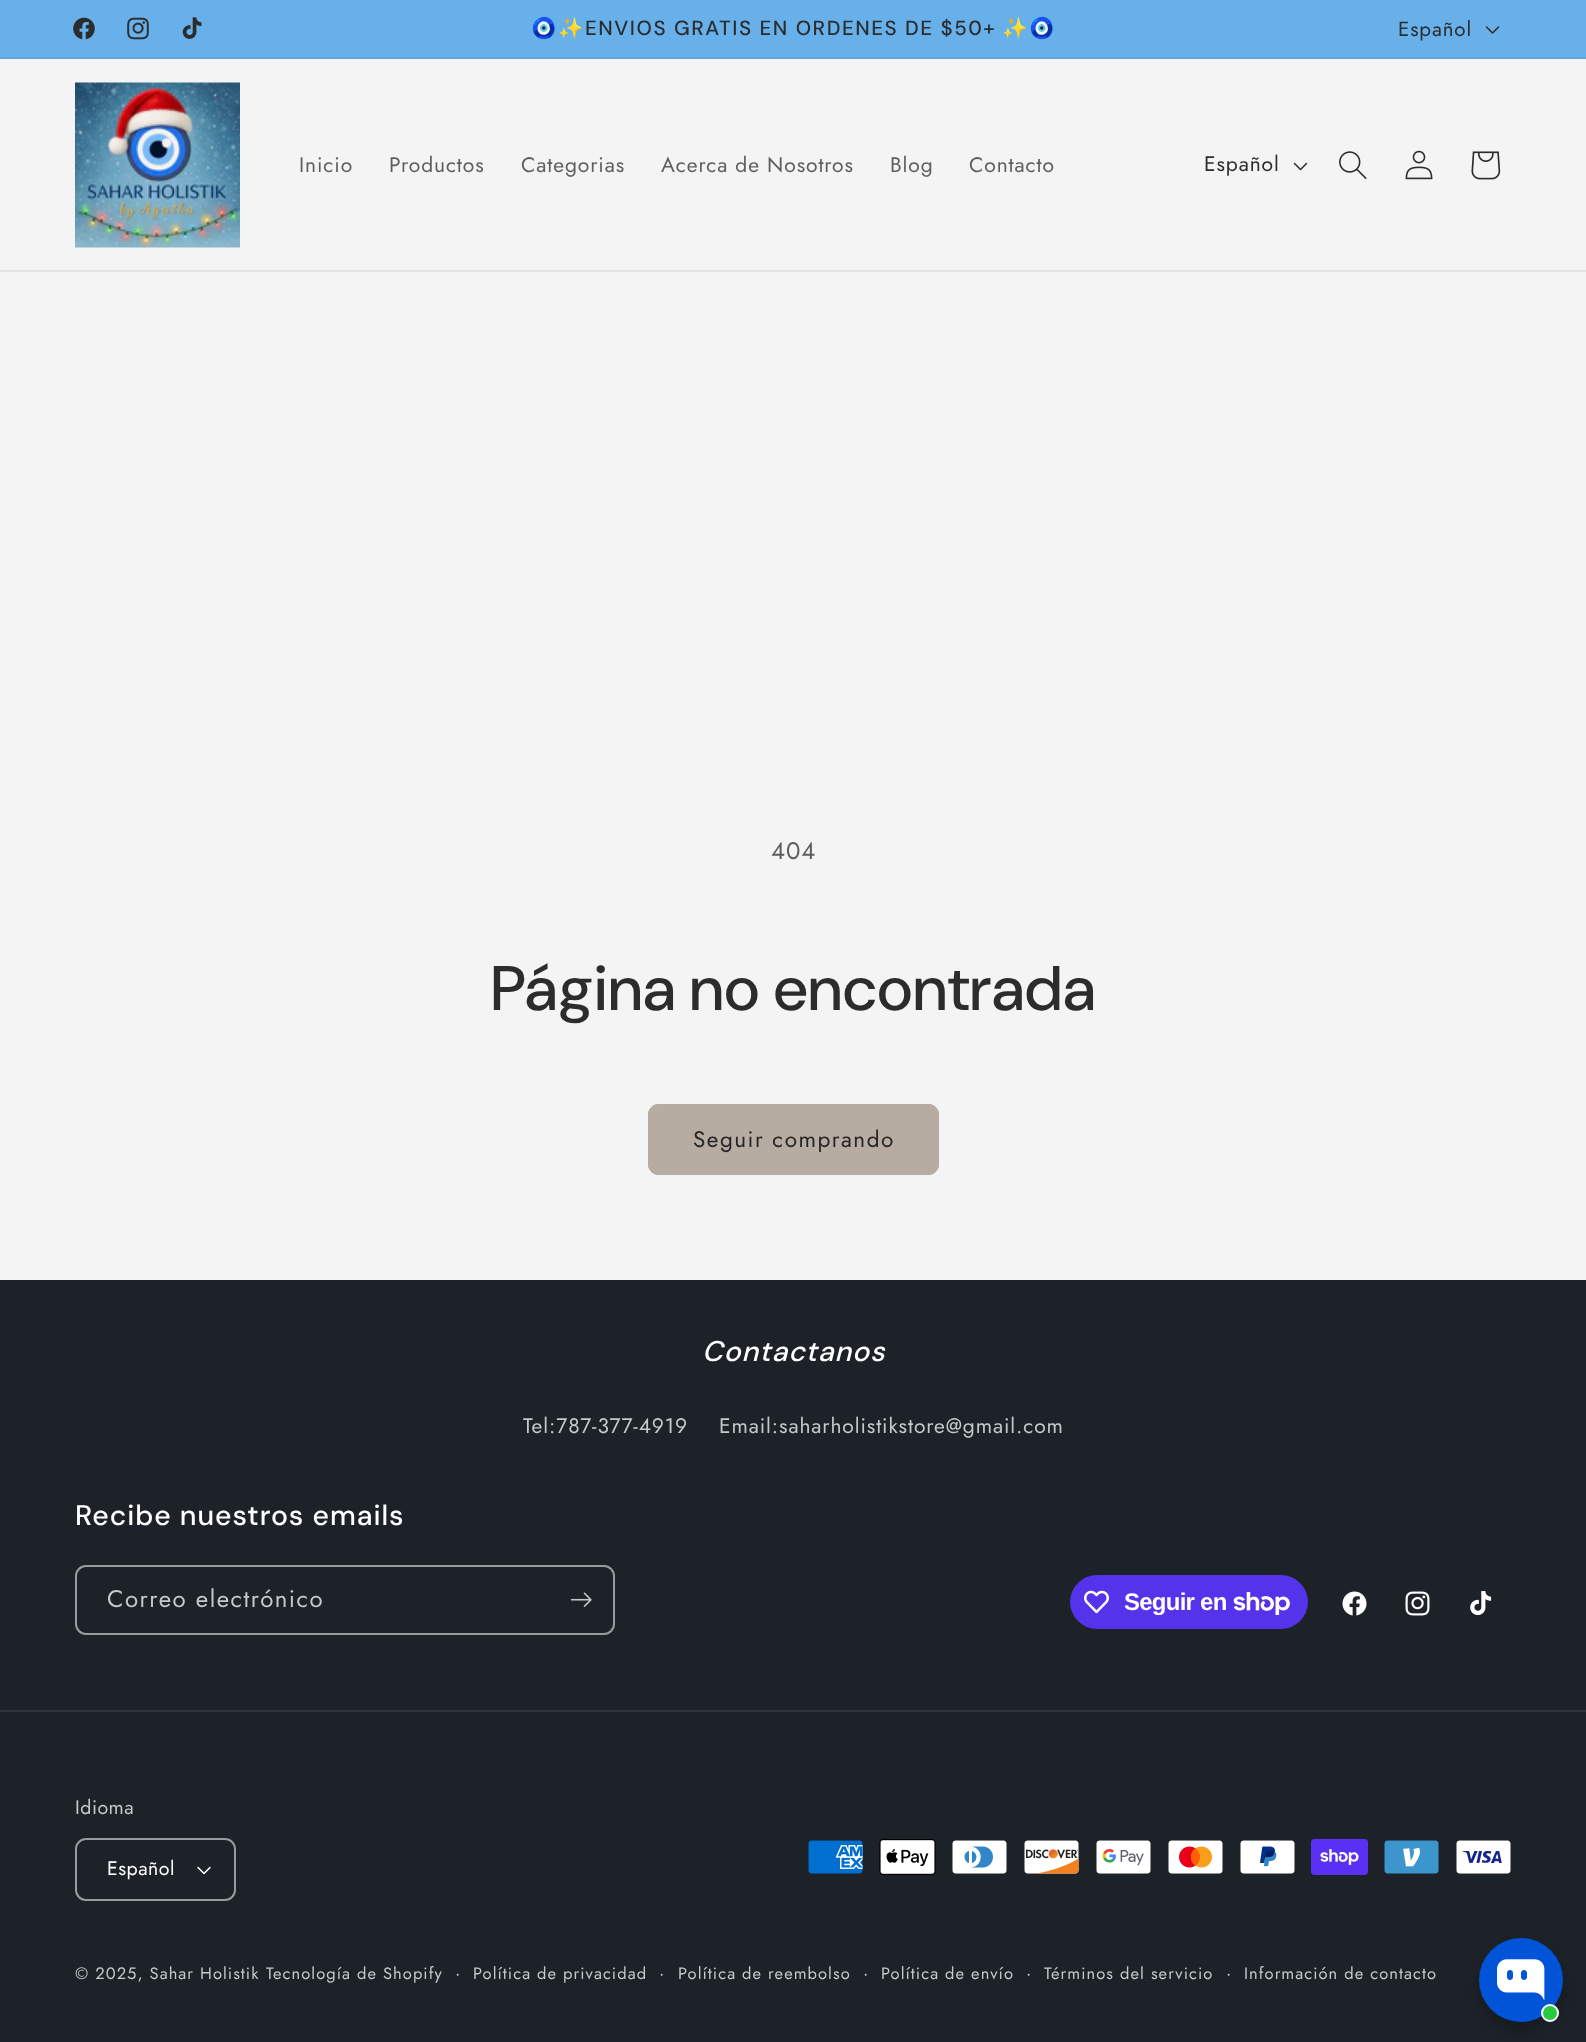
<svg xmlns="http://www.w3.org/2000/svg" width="1586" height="2042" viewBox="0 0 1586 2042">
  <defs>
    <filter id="blur1" x="-50%" y="-200%" width="200%" height="500%"><feGaussianBlur stdDeviation="9"/></filter>
  </defs>
  <rect width="100%" height="100%" fill="#f4f4f4"/>
  <rect x="0" y="0" width="1586" height="57" fill="#67b0ea"/>
  <rect x="0" y="57" width="1586" height="2" fill="#62a5db"/>
  <image x="73" y="17" width="22" height="23" href="img1.png"/>
  <image x="127" y="17" width="22" height="23" href="img2.png"/>
  <image x="182" y="17" width="20" height="22" href="img3.png"/>
  <text x="531" y="35" font-family="Noto Color Emoji" font-size="20.5" letter-spacing="1.5" fill="#2b2c2d">🧿✨</text>
  <text x="585" y="35" font-family="'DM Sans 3'" font-size="20.5" font-weight="500" letter-spacing="1.5" fill="#2b2c2d">ENVIOS GRATIS EN ORDENES DE $50+</text>
  <text x="1002" y="35" font-family="Noto Color Emoji" font-size="20.5" letter-spacing="1.5" fill="#2b2c2d">✨🧿</text>
  <text x="1398" y="36" font-family="Jost" font-size="20.5" letter-spacing="0.9" fill="#2b2c2d">Español</text>
  <image x="1485" y="26" width="15" height="8" href="img4.png"/>
  <rect x="0" y="270" width="1586" height="2" fill="#e4e4e4"/>
  <image x="75" y="82" width="165" height="166" href="img5.png"/>
  <text x="299" y="172" font-family="Jost" font-size="21" letter-spacing="0.9" fill="#5d5e5f">Inicio</text>
  <text x="389" y="172" font-family="Jost" font-size="21" letter-spacing="0.9" fill="#5d5e5f">Productos</text>
  <text x="521" y="172" font-family="Jost" font-size="21" letter-spacing="0.9" fill="#5d5e5f">Categorias</text>
  <text x="661" y="172" font-family="Jost" font-size="21" letter-spacing="0.9" fill="#5d5e5f">Acerca de Nosotros</text>
  <text x="890" y="172" font-family="Jost" font-size="21" letter-spacing="0.9" fill="#5d5e5f">Blog</text>
  <text x="969" y="172" font-family="Jost" font-size="21" letter-spacing="0.9" fill="#5d5e5f">Contacto</text>
  <text x="1204" y="171" font-family="Jost" font-size="21" letter-spacing="0.9" fill="#2b2c2d">Español</text>
  <image x="1293" y="162" width="15" height="9" href="img6.png"/>
  <image x="1339" y="151" width="28" height="28" href="img7.png"/>
  <image x="1405" y="150" width="28" height="30" href="img8.png"/>
  <image x="1471" y="151" width="30" height="29" href="img9.png"/>
  <text x="771" y="859" font-family="Jost" font-size="24" letter-spacing="0.9" fill="#5d5e5f">404</text>
  <text x="491" y="1010" font-family="DM Sans" font-size="63" font-weight="500" letter-spacing="0.95" fill="#2b2c2d">Página no encontrada</text>
  <rect x="648" y="1104" width="291" height="71" rx="11" fill="#b7aca2"/>
  <rect x="649" y="1105" width="289" height="69" rx="10" fill="none" stroke="#b7aca2" stroke-width="2"/>
  <text x="693" y="1147" font-family="Jost" font-size="22.5" letter-spacing="1.5" fill="#262626">Seguir comprando</text>
  <rect x="0" y="1280" width="1586" height="762" fill="#1c2228"/>
  <text x="702" y="1361" font-family="DM Sans" font-size="28.4" font-weight="500" font-style="italic" letter-spacing="0.95" fill="#ffffff">Contactanos</text>
  <text x="523" y="1433" font-family="Jost" font-size="21" letter-spacing="0.9" fill="#c6c8c9">Tel:787-377-4919</text>
  <text x="719" y="1433" font-family="Jost" font-size="21" letter-spacing="0.9" fill="#c6c8c9">Email:saharholistikstore@gmail.com</text>
  <text x="75" y="1525" font-family="'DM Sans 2'" font-size="28.4" font-weight="500" letter-spacing="0.95" fill="#ffffff">Recibe nuestros emails</text>
  <rect x="76" y="1566" width="538" height="68" rx="10" fill="none" stroke="#999c9e" stroke-width="2"/>
  <text x="107" y="1607" font-family="Jost" font-size="24" letter-spacing="1.5" fill="#c6c8c9">Correo electrónico</text>
  <image x="570" y="1592" width="22" height="15" href="img10.png"/>
  <rect x="1070" y="1575" width="238" height="54" rx="27" fill="#5433eb"/>
  <image x="1084" y="1590" width="25" height="24" href="img11.png"/>
  <text x="1124" y="1610" font-family="Liberation Sans" font-size="24" font-weight="bold" letter-spacing="-0.75" fill="#ffffff">Seguir en</text>
  <image x="1233" y="1592" width="57" height="23" href="img12.png"/>
  <image x="1342" y="1591" width="25" height="25" href="img13.png"/>
  <image x="1405" y="1591" width="25" height="25" href="img14.png"/>
  <image x="1470" y="1591" width="22" height="25" href="img15.png"/>
  <rect x="0" y="1710" width="1586" height="2" fill="#2e3439"/>
  <text x="75" y="1814" font-family="Jost" font-size="19.5" letter-spacing="0.5" fill="#c6c8c9">Idioma</text>
  <image x="197" y="1866" width="14" height="9" href="img16.png"/>
  <rect x="76" y="1839" width="159" height="61" rx="10" fill="none" stroke="#999c9e" stroke-width="2"/>
  <text x="107" y="1875" font-family="Jost" font-size="19.5" letter-spacing="0.5" fill="#ffffff">Español</text>
  <image x="808" y="1840" width="55" height="34" href="img17.png"/>
  <image x="879" y="1839" width="57" height="36" href="img18.png"/>
  <image x="952" y="1840" width="55" height="34" href="img19.png"/>
  <image x="1024" y="1840" width="55" height="34" href="img20.png"/>
  <image x="1096" y="1840" width="55" height="34" href="img21.png"/>
  <image x="1168" y="1840" width="55" height="34" href="img22.png"/>
  <image x="1240" y="1840" width="55" height="34" href="img23.png"/>
  <image x="1311" y="1839" width="57" height="36" href="img24.png"/>
  <image x="1384" y="1840" width="55" height="34" href="img25.png"/>
  <image x="1456" y="1840" width="55" height="34" href="img26.png"/>
  <text x="75" y="1979" font-family="Jost" font-size="16.5" letter-spacing="1.05" fill="#c6c8c9">© 2025, Sahar Holistik</text>
  <text x="266" y="1979" font-family="Jost" font-size="16.5" letter-spacing="1.05" fill="#c6c8c9">Tecnología de Shopify</text>
  <text x="455" y="1979" font-family="Jost" font-size="18" letter-spacing="1.05" fill="#c6c8c9">·</text>
  <text x="473" y="1979" font-family="Jost" font-size="16.5" letter-spacing="1.05" fill="#c6c8c9">Política de privacidad</text>
  <text x="659" y="1979" font-family="Jost" font-size="18" letter-spacing="1.05" fill="#c6c8c9">·</text>
  <text x="678" y="1979" font-family="Jost" font-size="16.5" letter-spacing="1.05" fill="#c6c8c9">Política de reembolso</text>
  <text x="863" y="1979" font-family="Jost" font-size="18" letter-spacing="1.05" fill="#c6c8c9">·</text>
  <text x="881" y="1979" font-family="Jost" font-size="16.5" letter-spacing="1.05" fill="#c6c8c9">Política de envío</text>
  <text x="1026" y="1979" font-family="Jost" font-size="18" letter-spacing="1.05" fill="#c6c8c9">·</text>
  <text x="1044" y="1979" font-family="Jost" font-size="16.5" letter-spacing="1.05" fill="#c6c8c9">Términos del servicio</text>
  <text x="1226" y="1979" font-family="Jost" font-size="18" letter-spacing="1.05" fill="#c6c8c9">·</text>
  <text x="1244" y="1979" font-family="Jost" font-size="16.5" letter-spacing="1.05" fill="#c6c8c9">Información de contacto</text>
  <rect x="1479" y="1947" width="84" height="84" rx="42" fill="#000000" fill-opacity="0.25" filter="url(#blur1)"/>
  <circle cx="1521" cy="1980" r="42" fill="#0154d7"/>
  <image x="1497" y="1959" width="48" height="41" href="img27.png"/>
  <circle cx="1550" cy="2013" r="8" fill="#27ca40" stroke="#ffffff" stroke-width="2"/>
</svg>
